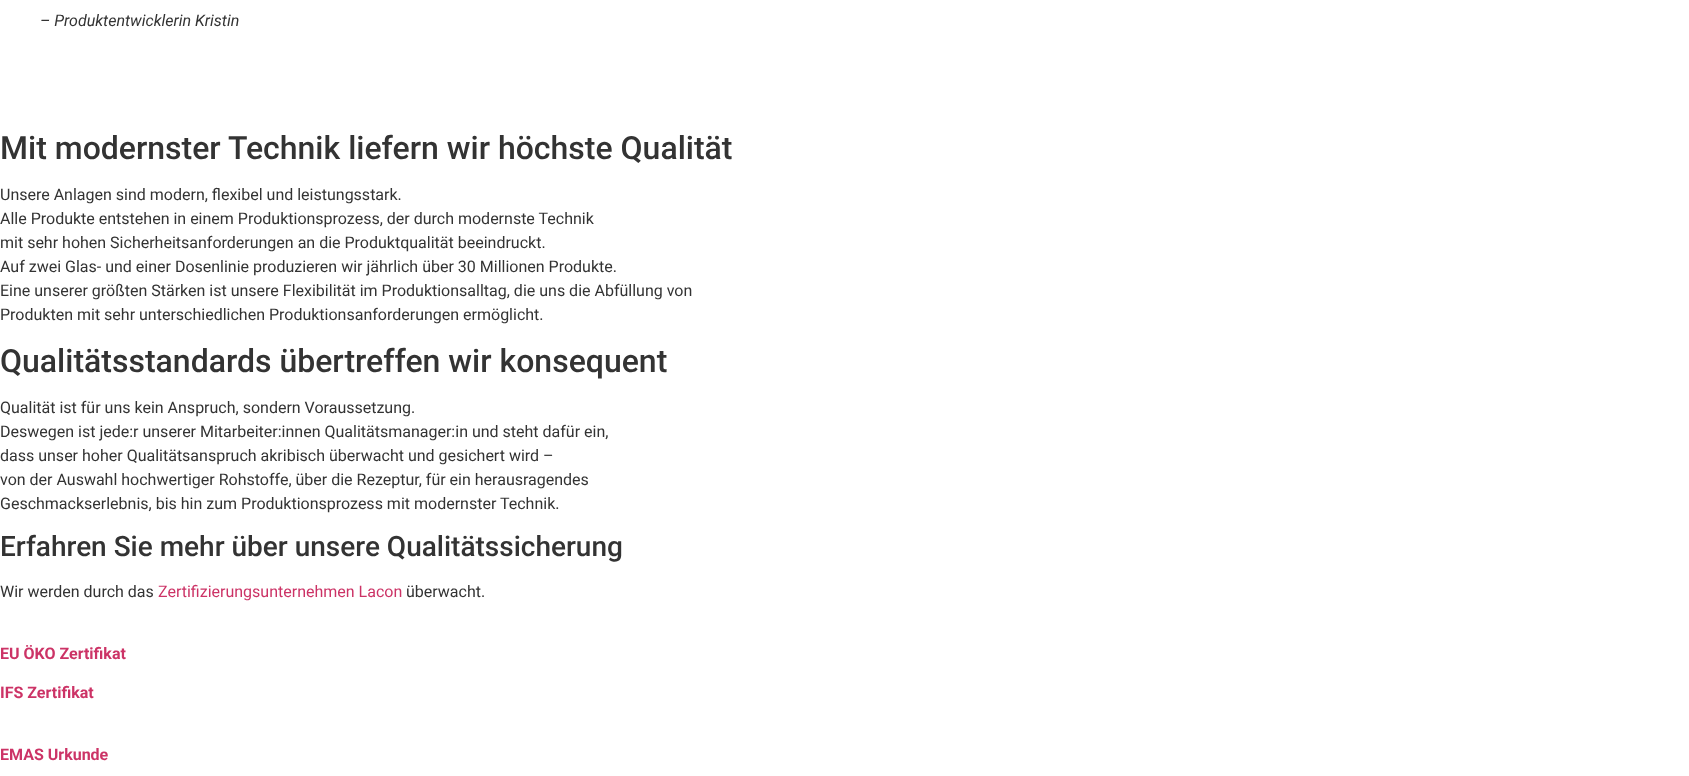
<svg xmlns="http://www.w3.org/2000/svg" width="1689" height="776" viewBox="0 0 1689 776">
  <rect width="100%" height="100%" fill="#ffffff"/>
  <text x="40" y="26" font-family="Roboto" font-size="16" font-style="italic" fill="#333333">– Produktentwicklerin Kristin</text>
  <text x="0" y="159" font-family="Roboto" font-size="32" font-weight="500" fill="#333333">Mit modernster Technik liefern wir höchste Qualität</text>
  <text x="0" y="200" font-family="Roboto" font-size="16" fill="#333333">Unsere Anlagen sind modern, flexibel und leistungsstark.</text>
  <text x="0" y="224" font-family="Roboto" font-size="16" fill="#333333">Alle Produkte entstehen in einem Produktionsprozess, der durch modernste Technik</text>
  <text x="0" y="248" font-family="Roboto" font-size="16" fill="#333333">mit sehr hohen Sicherheitsanforderungen an die Produktqualität beeindruckt.</text>
  <text x="0" y="272" font-family="Roboto" font-size="16" fill="#333333">Auf zwei Glas- und einer Dosenlinie produzieren wir jährlich über 30 Millionen Produkte.</text>
  <text x="0" y="296" font-family="Roboto" font-size="16" fill="#333333">Eine unserer größten Stärken ist unsere Flexibilität im Produktionsalltag, die uns die Abfüllung von</text>
  <text x="0" y="320" font-family="Roboto" font-size="16" fill="#333333">Produkten mit sehr unterschiedlichen Produktionsanforderungen ermöglicht.</text>
  <text x="0" y="372" font-family="Roboto" font-size="32" font-weight="500" fill="#333333">Qualitätsstandards übertreffen wir konsequent</text>
  <text x="0" y="413" font-family="Roboto" font-size="16" fill="#333333">Qualität ist für uns kein Anspruch, sondern Voraussetzung.</text>
  <text x="0" y="437" font-family="Roboto" font-size="16" fill="#333333">Deswegen ist jede:r unserer Mitarbeiter:innen Qualitätsmanager:in und steht dafür ein,</text>
  <text x="0" y="461" font-family="Roboto" font-size="16" fill="#333333">dass unser hoher Qualitätsanspruch akribisch überwacht und gesichert wird –</text>
  <text x="0" y="485" font-family="Roboto" font-size="16" fill="#333333">von der Auswahl hochwertiger Rohstoffe, über die Rezeptur, für ein herausragendes</text>
  <text x="0" y="509" font-family="Roboto" font-size="16" fill="#333333">Geschmackserlebnis, bis hin zum Produktionsprozess mit modernster Technik.</text>
  <text x="0" y="556" font-family="Roboto" font-size="28" font-weight="500" fill="#333333">Erfahren Sie mehr über unsere Qualitätssicherung</text>
  <text x="0" y="597" font-family="Roboto" font-size="16" fill="#333333">Wir werden durch das</text>
  <text x="158" y="597" font-family="Roboto" font-size="16" fill="#cc3366">Zertifizierungsunternehmen Lacon</text>
  <text x="406" y="597" font-family="Roboto" font-size="16" fill="#333333">überwacht.</text>
  <text x="0" y="659" font-family="Roboto" font-size="16" font-weight="bold" fill="#cc3366">EU ÖKO Zertifikat</text>
  <text x="0" y="698" font-family="Roboto" font-size="16" font-weight="bold" fill="#cc3366">IFS Zertifikat</text>
  <text x="0" y="760" font-family="Roboto" font-size="16" font-weight="bold" fill="#cc3366">EMAS Urkunde</text>
</svg>
